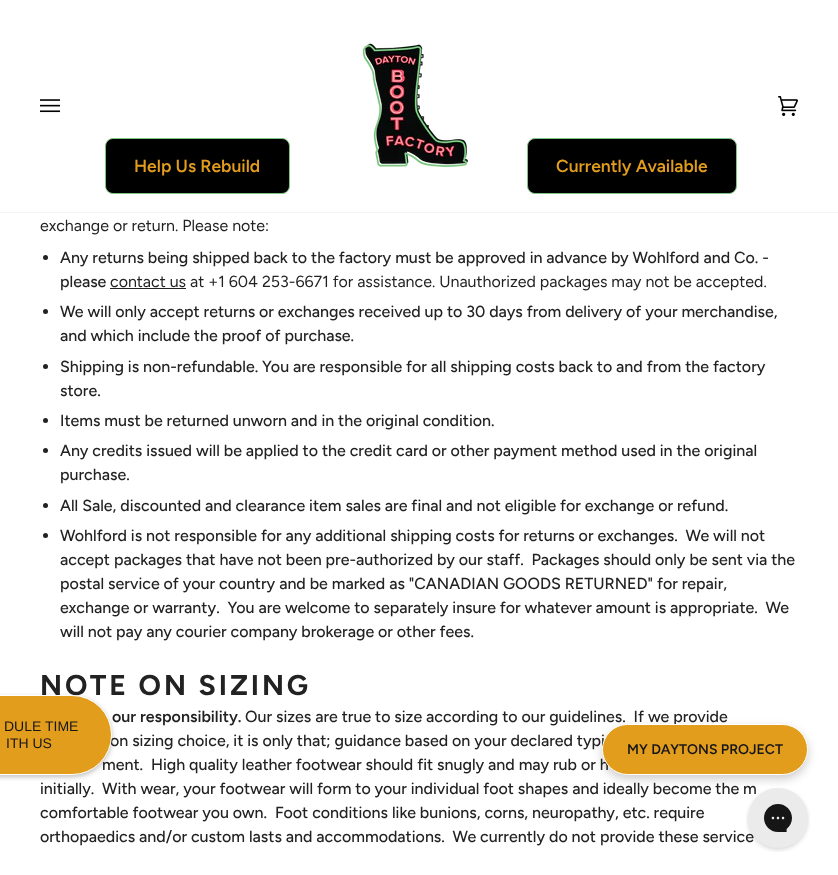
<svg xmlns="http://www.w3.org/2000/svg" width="838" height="875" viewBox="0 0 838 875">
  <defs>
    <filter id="blur1" x="-50%" y="-200%" width="200%" height="500%"><feGaussianBlur stdDeviation="2.5"/></filter>
    <filter id="blur2" x="-50%" y="-200%" width="200%" height="500%"><feGaussianBlur stdDeviation="5"/></filter>
  </defs>
  <rect width="100%" height="100%" fill="#ffffff"/>
  <rect x="0" y="212" width="838" height="1" fill="#f7f5f4"/>
  <image x="40" y="99" width="20" height="14" href="img1.png"/>
  <image x="362" y="43" width="106" height="125" href="img2.png"/>
  <image x="778" y="96" width="20" height="20" href="img3.png"/>
  <rect x="105.5" y="138.5" width="184" height="55" rx="7.5" fill="#000000" stroke="#7dc683"/>
  <text x="134" y="172" font-family="Figtree" font-size="17.5" font-weight="600" fill="#e39d1d">Help Us Rebuild</text>
  <rect x="527.5" y="138.5" width="209" height="55" rx="7.5" fill="#000000" stroke="#7dc683"/>
  <text x="556" y="172" font-family="Figtree" font-size="17.5" font-weight="600" fill="#e39d1d">Currently Available</text>
  <text x="40" y="231" font-family="Figtree" font-size="16" fill="#222222">exchange or return. Please note:</text>
  <circle cx="45.5" cy="257.5" r="2.5" fill="#222222"/>
  <text x="60" y="263" font-family="Figtree" font-size="16" font-weight="500" fill="#222222">Any returns being shipped back to the factory must be approved in advance by Wohlford and Co. -</text>
  <text x="60" y="287" font-family="Figtree" font-size="16" font-weight="500" fill="#222222">please</text>
  <rect x="110" y="288" width="76" height="1" fill="#222222"/>
  <text x="110" y="287" font-family="Figtree" font-size="16" fill="#222222">contact us at +1 604 253-6671 for assistance. Unauthorized packages may not be accepted.</text>
  <circle cx="45.5" cy="311.5" r="2.5" fill="#222222"/>
  <text x="60" y="317" font-family="Figtree" font-size="16" font-weight="500" fill="#222222">We will only accept returns or exchanges received up to 30 days from delivery of your merchandise,</text>
  <text x="60" y="341" font-family="Figtree" font-size="16" font-weight="500" fill="#222222">and which include the proof of purchase.</text>
  <circle cx="45.5" cy="366.5" r="2.5" fill="#222222"/>
  <text x="60" y="372" font-family="Figtree" font-size="16" font-weight="500" fill="#222222">Shipping is non-refundable. You are responsible for all shipping costs back to and from the factory</text>
  <text x="60" y="396" font-family="Figtree" font-size="16" font-weight="500" fill="#222222">store.</text>
  <circle cx="45.5" cy="420.5" r="2.5" fill="#222222"/>
  <text x="60" y="426" font-family="Figtree" font-size="16" font-weight="500" fill="#222222">Items must be returned unworn and in the original condition.</text>
  <circle cx="45.5" cy="450.5" r="2.5" fill="#222222"/>
  <text x="60" y="456" font-family="Figtree" font-size="16" font-weight="500" fill="#222222">Any credits issued will be applied to the credit card or other payment method used in the original</text>
  <text x="60" y="480" font-family="Figtree" font-size="16" font-weight="500" fill="#222222">purchase.</text>
  <circle cx="45.5" cy="505.5" r="2.5" fill="#222222"/>
  <text x="60" y="511" font-family="Figtree" font-size="16" font-weight="500" fill="#222222">All Sale, discounted and clearance item sales are final and not eligible for exchange or refund.</text>
  <circle cx="45.5" cy="535.5" r="2.5" fill="#222222"/>
  <text x="60" y="541" font-family="Figtree" font-size="16" font-weight="500" fill="#222222" xml:space="preserve">Wohlford is not responsible for any additional shipping costs for returns or exchanges.  We will not</text>
  <text x="60" y="565" font-family="Figtree" font-size="16" font-weight="500" fill="#222222" xml:space="preserve">accept packages that have not been pre-authorized by our staff.  Packages should only be sent via the</text>
  <text x="60" y="589" font-family="Figtree" font-size="16" font-weight="500" fill="#222222">postal service of your country and be marked as "CANADIAN GOODS RETURNED" for repair,</text>
  <text x="60" y="613" font-family="Figtree" font-size="16" font-weight="500" fill="#222222" xml:space="preserve">exchange or warranty.  You are welcome to separately insure for whatever amount is appropriate.  We</text>
  <text x="60" y="637" font-family="Figtree" font-size="16" font-weight="500" fill="#222222">will not pay any courier company brokerage or other fees.</text>
  <text x="40" y="695" font-family="Figtree" font-size="28.5" font-weight="bold" letter-spacing="2.9" fill="#222222">NOTE ON SIZING</text>
  <text x="112" y="722" font-family="Figtree" font-size="16" font-weight="600" fill="#222222">our responsibility.</text>
  <text x="245" y="722" font-family="Figtree" font-size="16" font-weight="500" fill="#222222" xml:space="preserve">Our sizes are true to size according to our guidelines.  If we provide</text>
  <text x="110" y="746" font-family="Figtree" font-size="16" font-weight="500" fill="#222222">on sizing choice, it is only that; guidance based on your declared typi</text>
  <text x="102" y="770" font-family="Figtree" font-size="16" font-weight="500" fill="#222222" xml:space="preserve">ment.  High quality leather footwear should fit snugly and may rub or h</text>
  <text x="40" y="794" font-family="Figtree" font-size="16" font-weight="500" fill="#222222" xml:space="preserve">initially.  With wear, your footwear will form to your individual foot shapes and ideally become the m</text>
  <text x="40" y="818" font-family="Figtree" font-size="16" font-weight="500" fill="#222222" xml:space="preserve">comfortable footwear you own.  Foot conditions like bunions, corns, neuropathy, etc. require</text>
  <text x="40" y="842" font-family="Figtree" font-size="16" font-weight="500" fill="#222222" xml:space="preserve">orthopaedics and/or custom lasts and accommodations.  We currently do not provide these service</text>
  <rect x="-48" y="697" width="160" height="80" rx="40" fill="#000000" fill-opacity="0.25" filter="url(#blur1)"/>
  <rect x="-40.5" y="695.5" width="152" height="79" rx="39.5" fill="#e39d1d" stroke="#ffffff"/>
  <text x="4" y="731" font-family="Liberation Sans" font-size="14" fill="#161619">DULE TIME</text>
  <text x="6" y="748" font-family="Liberation Sans" font-size="14" fill="#161619">ITH US</text>
  <rect x="602" y="728" width="206" height="51" rx="25.5" fill="#000000" fill-opacity="0.2" filter="url(#blur2)"/>
  <rect x="602.5" y="724.5" width="205" height="50" rx="25" fill="#e39d1d" stroke="#ffffff"/>
  <text x="627" y="754" font-family="Figtree" font-size="14" font-weight="600" fill="#161619">MY DAYTONS PROJECT</text>
  <image x="746" y="788" width="64" height="64" href="img4.png"/>
</svg>
